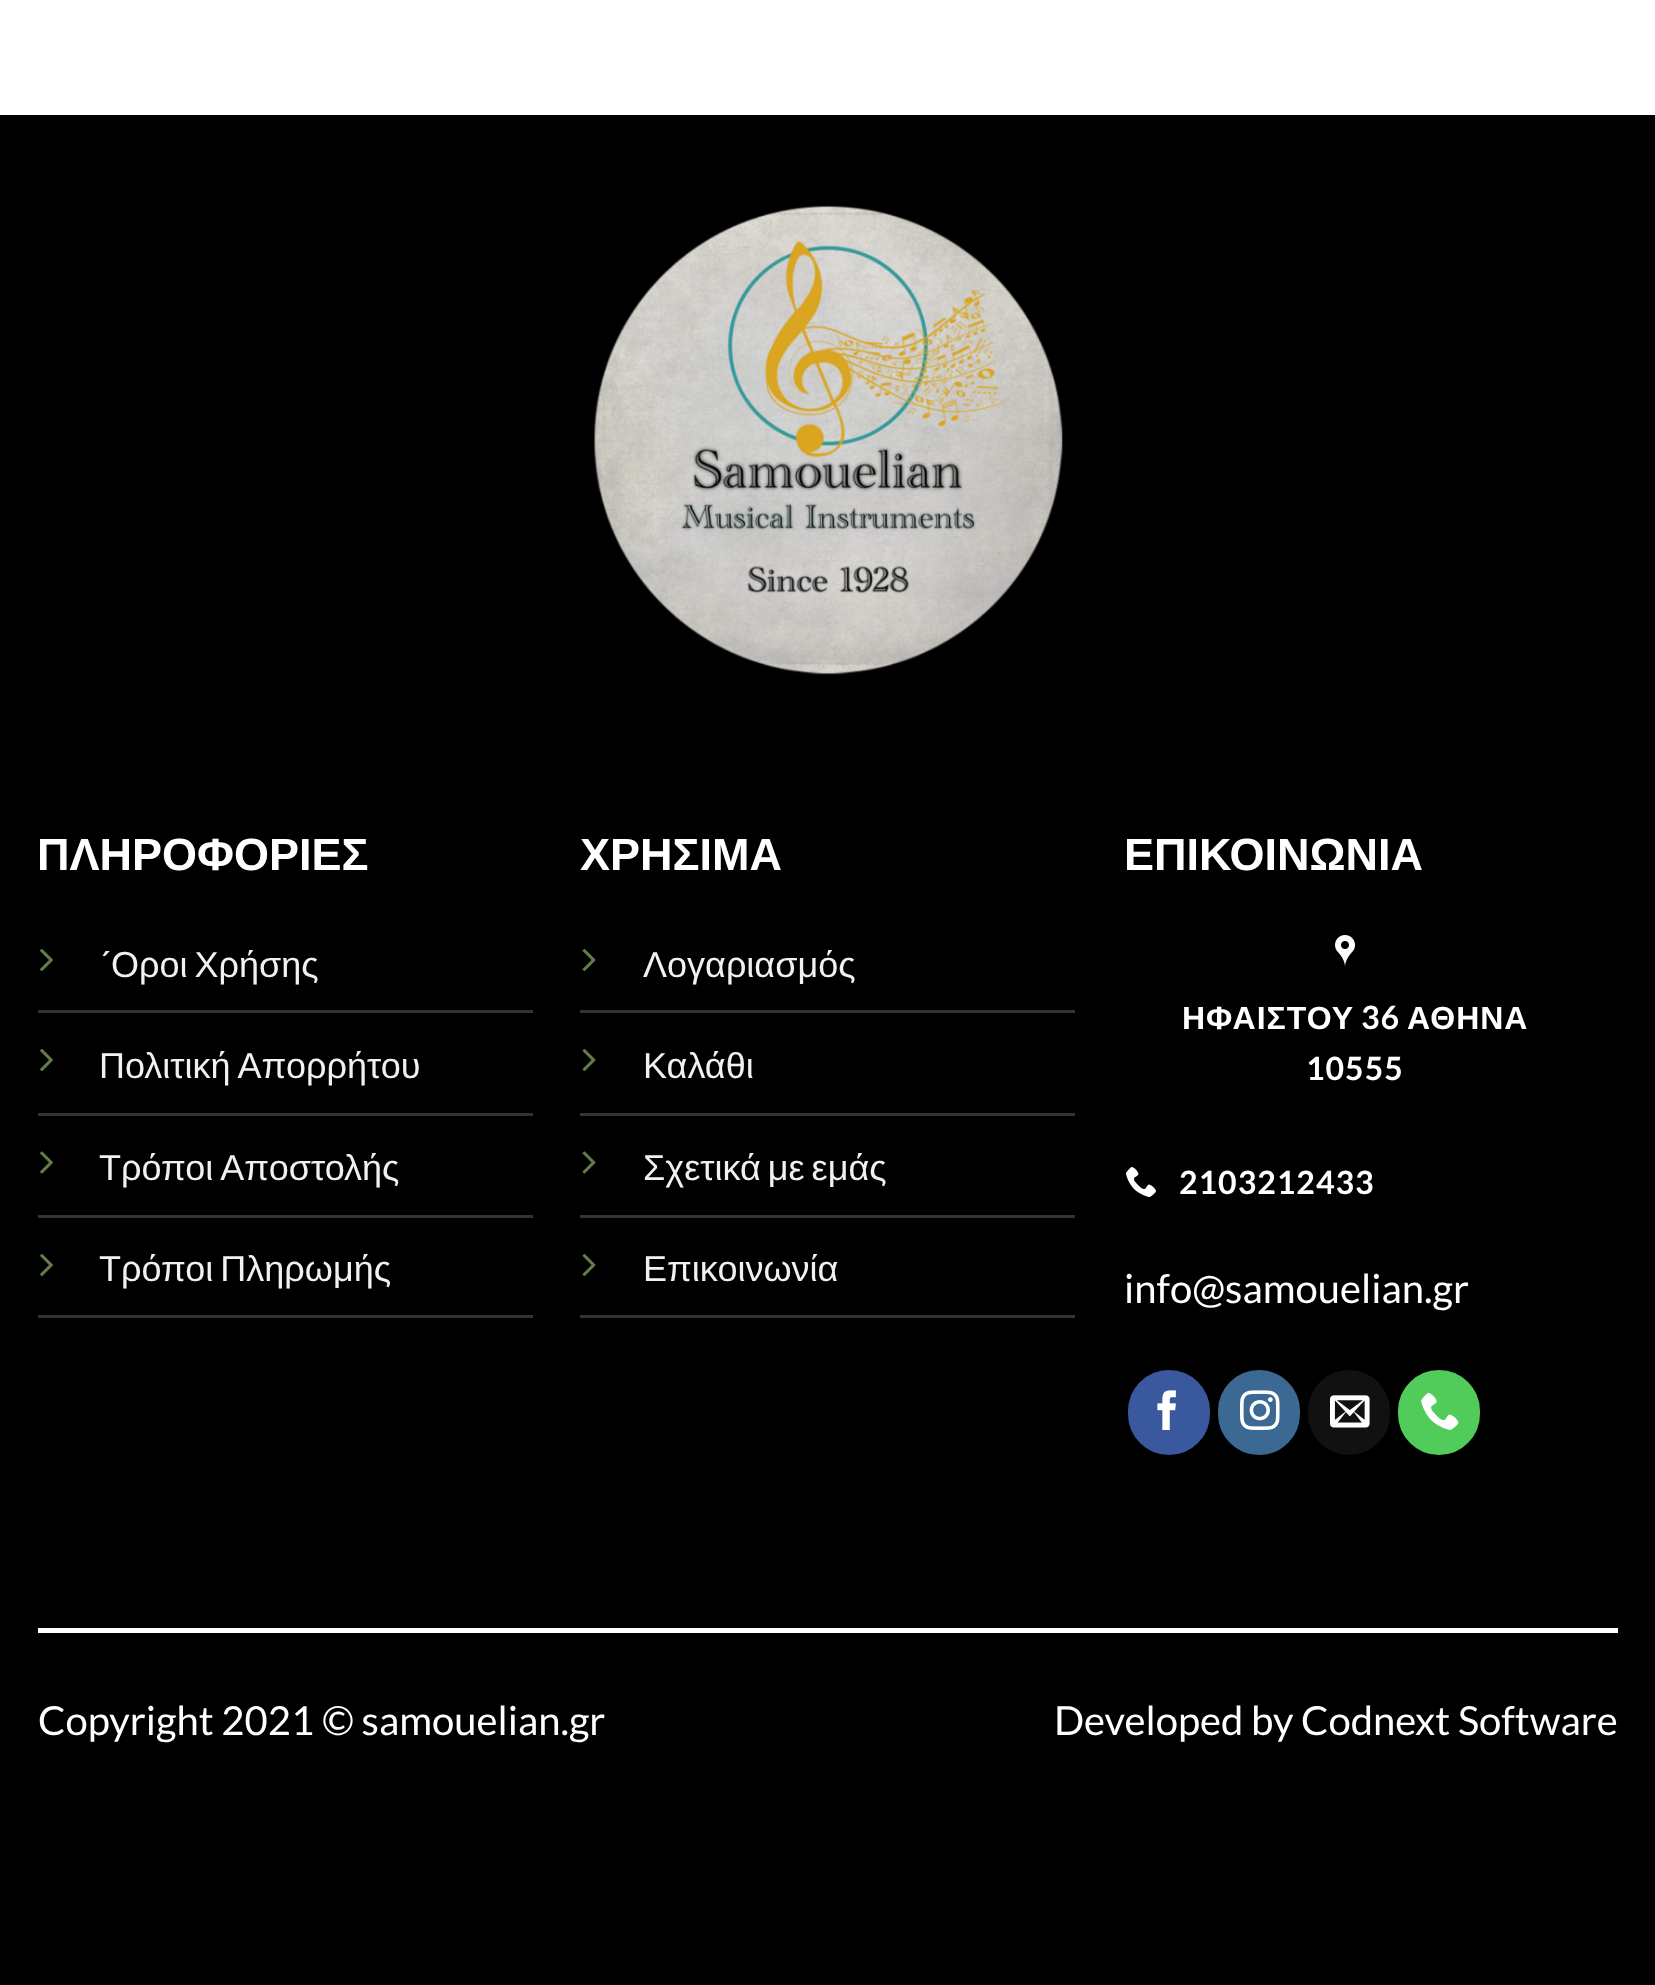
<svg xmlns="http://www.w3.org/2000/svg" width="1655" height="1985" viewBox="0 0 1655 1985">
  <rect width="100%" height="100%" fill="#ffffff"/>
  <rect x="0" y="115" width="1655" height="1870" fill="#000000"/>
  <image x="593" y="205" width="470" height="470" href="img1.png"/>
  <text x="37" y="870" font-family="Liberation Sans" font-size="45" font-weight="bold" fill="#ffffff">ΠΛΗΡΟΦΟΡΙΕΣ</text>
  <rect x="38" y="1010" width="495" height="3" fill="#333333"/>
  <image x="40" y="949" width="13" height="22" href="img2.png"/>
  <text x="99" y="977" font-family="Lato" font-size="36" fill="#f1f1f1">´</text>
  <text x="111" y="977" word-spacing="-3" font-family="Liberation Sans" font-size="36" fill="#f1f1f1">Οροι Χρήσης</text>
  <rect x="38" y="1113" width="495" height="3" fill="#333333"/>
  <image x="40" y="1049" width="13" height="22" href="img2.png"/>
  <text x="99" y="1078" word-spacing="-1" font-family="Liberation Sans" font-size="36" fill="#f1f1f1">Πολιτική Απορρήτου</text>
  <rect x="38" y="1215" width="495" height="3" fill="#333333"/>
  <image x="40" y="1151" width="13" height="23" href="img3.png"/>
  <text x="99" y="1180" word-spacing="-1" font-family="Liberation Sans" font-size="36" fill="#f1f1f1">Τρόποι Αποστολής</text>
  <rect x="38" y="1315" width="495" height="3" fill="#333333"/>
  <image x="40" y="1254" width="13" height="22" href="img2.png"/>
  <text x="99" y="1281" word-spacing="-3" font-family="Liberation Sans" font-size="36" fill="#f1f1f1">Τρόποι Πληρωμής</text>
  <text x="580" y="870" font-family="Liberation Sans" font-size="45" font-weight="bold" fill="#ffffff">ΧΡΗΣΙΜΑ</text>
  <rect x="580" y="1010" width="495" height="3" fill="#333333"/>
  <image x="582" y="948" width="14" height="24" href="img4.png"/>
  <text x="643" y="977" font-family="Liberation Sans" font-size="36" fill="#f1f1f1">Λογαριασμός</text>
  <rect x="580" y="1113" width="495" height="3" fill="#333333"/>
  <image x="582" y="1048" width="14" height="24" href="img4.png"/>
  <text x="643" y="1078" font-family="Liberation Sans" font-size="36" fill="#f1f1f1">Καλάθι</text>
  <rect x="580" y="1215" width="495" height="3" fill="#333333"/>
  <image x="582" y="1151" width="14" height="23" href="img5.png"/>
  <text x="643" y="1180" word-spacing="-3" font-family="Liberation Sans" font-size="36" fill="#f1f1f1">Σχετικά με εμάς</text>
  <rect x="580" y="1315" width="495" height="3" fill="#333333"/>
  <image x="582" y="1253" width="14" height="24" href="img4.png"/>
  <text x="643" y="1281" font-family="Liberation Sans" font-size="36" fill="#f1f1f1">Επικοινωνία</text>
  <text x="1124" y="870" font-family="Liberation Sans" font-size="45" font-weight="bold" fill="#ffffff">ΕΠΙΚΟΙΝΩΝΙΑ</text>
  <image x="1335" y="935" width="20" height="32" href="img6.png"/>
  <text x="1182" y="1029" font-family="Liberation Sans" font-size="32" font-weight="bold" letter-spacing="1" fill="#ffffff">ΗΦΑΙΣΤΟΥ</text>
  <text x="1361" y="1029" font-family="Lato" font-size="32" font-weight="bold" letter-spacing="1" fill="#ffffff">36</text>
  <text x="1407" y="1029" font-family="Liberation Sans" font-size="32" font-weight="bold" letter-spacing="1" fill="#ffffff">ΑΘΗΝΑ</text>
  <text x="1306" y="1080" font-family="Lato" font-size="32" font-weight="bold" letter-spacing="1" fill="#ffffff">10555</text>
  <image x="1126" y="1167" width="30" height="30" href="img7.png"/>
  <text x="1179" y="1194" font-family="Lato" font-size="32" font-weight="bold" letter-spacing="1" fill="#ffffff">2103212433</text>
  <text x="1124" y="1303" font-family="Lato" font-size="40" fill="#ffffff">info@samouelian.gr</text>
  <rect x="1129.5" y="1371.5" width="79" height="82" rx="39.5" fill="#3a589d" stroke="#3a589d" stroke-width="3"/>
  <image x="1157" y="1390" width="19" height="40" href="img8.png"/>
  <rect x="1219.5" y="1371.5" width="79" height="82" rx="39.5" fill="#3b6994" stroke="#3b6994" stroke-width="3"/>
  <image x="1240" y="1390" width="40" height="40" href="img9.png"/>
  <rect x="1309.5" y="1371.5" width="79" height="82" rx="39.5" fill="#111111" stroke="#111111" stroke-width="3"/>
  <image x="1330" y="1395" width="40" height="33" href="img10.png"/>
  <rect x="1399.5" y="1371.5" width="79" height="82" rx="39.5" fill="#51cb5a" stroke="#51cb5a" stroke-width="3"/>
  <image x="1421" y="1392" width="38" height="38" href="img11.png"/>
  <rect x="38" y="1628" width="1580" height="5" fill="#ffffff"/>
  <text x="38" y="1735" font-family="Lato" font-size="40" fill="#ffffff">Copyright 2021 © samouelian.gr</text>
  <text x="1054" y="1735" font-family="Lato" font-size="40" fill="#ffffff">Developed by Codnext Software</text>
</svg>
